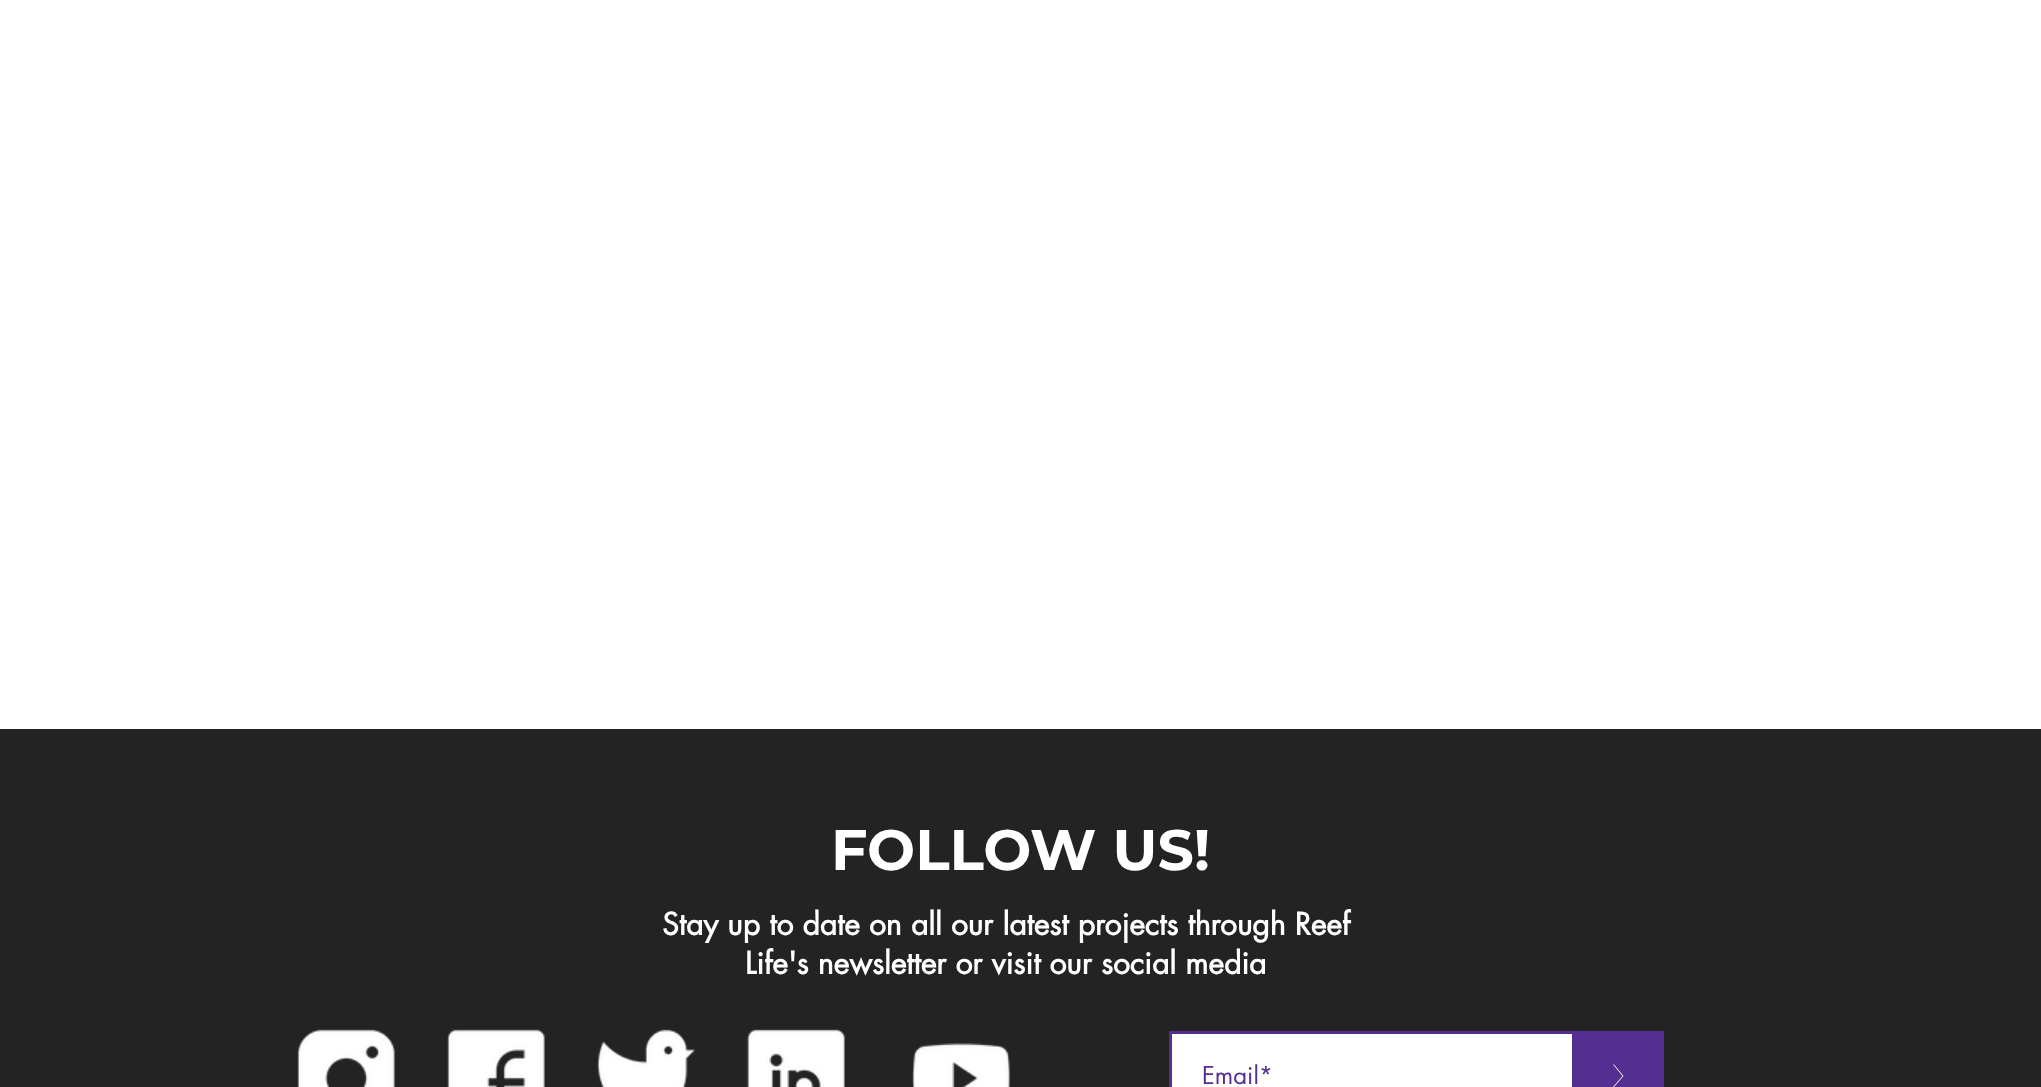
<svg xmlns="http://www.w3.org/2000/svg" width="2041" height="1087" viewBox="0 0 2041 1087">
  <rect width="100%" height="100%" fill="#ffffff"/>
  <rect x="0" y="729" width="2041" height="358" fill="#242323"/>
  <text x="831" y="870" font-family="Montserrat" font-size="57" font-weight="bold" fill="#ffffff">FOLLOW US!</text>
  <text x="662" y="935" font-family="futura" font-size="30" font-weight="bold" fill="#ffffff">Stay up to date on all our latest projects through Reef</text>
  <text x="745" y="974" font-family="futura" font-size="30" font-weight="bold" fill="#ffffff">Life's newsletter or visit our social media</text>
  <image x="297" y="1029" width="98" height="58" href="img1.png"/>
  <image x="447" y="1029" width="98" height="58" href="img2.png"/>
  <image x="597" y="1029" width="98" height="58" href="img3.png"/>
  <image x="746" y="1029" width="99" height="58" href="img4.png"/>
  <image x="912" y="1043" width="98" height="44" href="img5.png"/>
  <rect x="1170.5" y="1032.5" width="403" height="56" fill="#ffffff" stroke="#542e91" stroke-width="3"/>
  <text x="1202" y="1084" font-family="futura" font-size="24" fill="#542e91">Email*</text>
  <rect x="1575" y="1031" width="89" height="56" fill="#542e91"/>
  <path d="M1623.5 1076L1614 1087H1613L1622.5 1076L1613 1064.5H1614Z" fill="#ffffff"/>
</svg>
